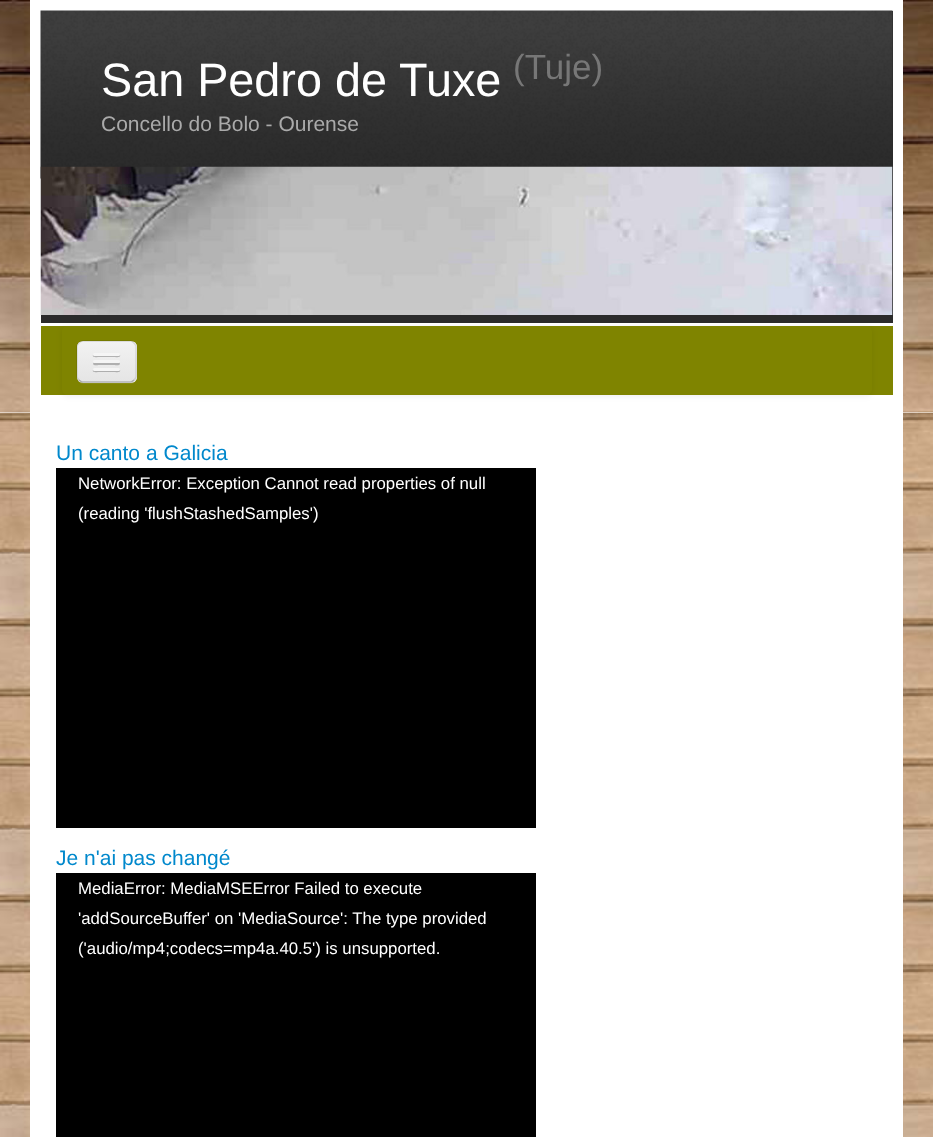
<svg xmlns="http://www.w3.org/2000/svg" width="933" height="1137" viewBox="0 0 933 1137">
  <defs>
    <clipPath id="clip1"><path d="M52 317H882V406H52ZM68 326H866C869.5 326 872 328.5 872 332V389C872 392.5 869.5 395 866 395H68C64.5 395 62 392.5 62 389V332C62 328.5 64.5 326 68 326Z" clip-rule="evenodd"/></clipPath>
    <filter id="blur1" x="-50%" y="-200%" width="200%" height="500%"><feGaussianBlur stdDeviation="3"/></filter>
    <clipPath id="clip2"><rect x="77" y="341" width="60" height="42" rx="6"/></clipPath>
    <linearGradient id="g1" gradientUnits="userSpaceOnUse" x1="107" y1="342" x2="107" y2="381"><stop offset="0" stop-color="#f2f2f2"/><stop offset="1" stop-color="#e5e5e5"/></linearGradient>
  </defs>
  <rect width="100%" height="100%" fill="#ffffff"/>
  <image x="0" y="413" width="933" height="724" href="img1.png"/>
  <image x="0" y="0" width="933" height="413" href="img2.png"/>
  <rect x="30" y="0" width="873" height="1137" fill="#ffffff"/>
  <rect x="41" y="11" width="852" height="312" fill="#2b2b2b"/>
  <image x="40" y="10" width="853" height="169" href="img3.png"/>
  <text x="101" y="96" font-family="Liberation Sans" font-size="46.75" fill="#ffffff">San Pedro de Tuxe</text>
  <text x="513" y="79" font-family="Liberation Sans" font-size="35" fill="#777777">(Tuje)</text>
  <text x="101" y="131" font-family="Liberation Sans" font-size="21" fill="#aaaaaa">Concello do Bolo - Ourense</text>
  <image x="40" y="166" width="853" height="149" href="img4.png"/>
  <rect x="41" y="326" width="852" height="69" fill="#7f8400"/>
  <g clip-path="url(#clip1)">
    <rect x="62" y="327" width="810" height="69" rx="6" fill="#000000" fill-opacity="0.07" filter="url(#blur1)"/>
  </g>
  <path d="M77 379C78 382 80 384 83 384H131C134 384 137 381 137 378V348L136 345V378L135 380C135 381 133 382 132 382H90C86 382 79 384 77 379Z" fill="#898d13"/>
  <rect x="77" y="341" width="60" height="42" rx="6" fill="#ededed"/>
  <g clip-path="url(#clip2)">
    <rect x="77" y="342" width="60" height="39" fill="url(#g1)"/>
  </g>
  <path d="M134 380C133 381 132 382 130.5 382H82.5C81 382 80 381 79 380" fill="none" stroke="#000000" stroke-opacity="0.25" stroke-width="1.5"/>
  <path d="M79 380C78 379 77 378 77 376.5V346.5C77 345 78 344 79 343C80 342 81 341 82.5 341H130.5C132 341 133 342 134 343C135 344 136 345 136 346.5V376.5C136 378 135 379 134 380" fill="none" stroke="#000000" stroke-opacity="0.1" stroke-width="1.5"/>
  <path d="M93 355C91.5 358 98.5 357 98.5 357H114.5C114.5 357 121.5 358 120 355C119.5 355 119 355.5 118.5 355.5H94.5C94 355.5 93.5 355 93 355Z" fill="#b2b2b2"/>
  <rect x="93" y="353" width="27" height="3" rx="1.5" fill="#f5f5f5"/>
  <path d="M93.5 362.5L93 364C93.5 366 98 365 98.5 365H114.5C115 365 119.5 366 120 364L119.5 362.5L118.5 363H94.5Z" fill="#b0b0b0"/>
  <rect x="93" y="360" width="27" height="3" rx="1.5" fill="#f5f5f5"/>
  <path d="M93 370C91.5 373 98.5 372 98.5 372H114.5C114.5 372 121.5 373 120 370C119.5 370 119 370.5 118.5 370.5H94.5C94 370.5 93.5 370 93 370Z" fill="#aeaeae"/>
  <rect x="93" y="368" width="27" height="3" rx="1.5" fill="#f5f5f5"/>
  <text x="56" y="460" font-family="Liberation Sans" font-size="21" fill="#0088cc">Un canto a Galicia</text>
  <rect x="56" y="468" width="480" height="360" fill="#000000"/>
  <text x="78" y="489" font-family="Liberation Sans" font-size="16.8" fill="#ffffff">NetworkError: Exception Cannot read properties of null</text>
  <text x="78" y="519" font-family="Liberation Sans" font-size="16.8" fill="#ffffff">(reading 'flushStashedSamples')</text>
  <text x="56" y="865" font-family="Liberation Sans" font-size="21" fill="#0088cc">Je n'ai pas changé</text>
  <rect x="56" y="873" width="480" height="264" fill="#000000"/>
  <text x="78" y="894" font-family="Liberation Sans" font-size="16.8" fill="#ffffff">MediaError: MediaMSEError Failed to execute</text>
  <text x="78" y="924" font-family="Liberation Sans" font-size="16.8" fill="#ffffff">'addSourceBuffer' on 'MediaSource': The type provided</text>
  <text x="78" y="954" font-family="Liberation Sans" font-size="16.8" fill="#ffffff">('audio/mp4;codecs=mp4a.40.5') is unsupported.</text>
</svg>
